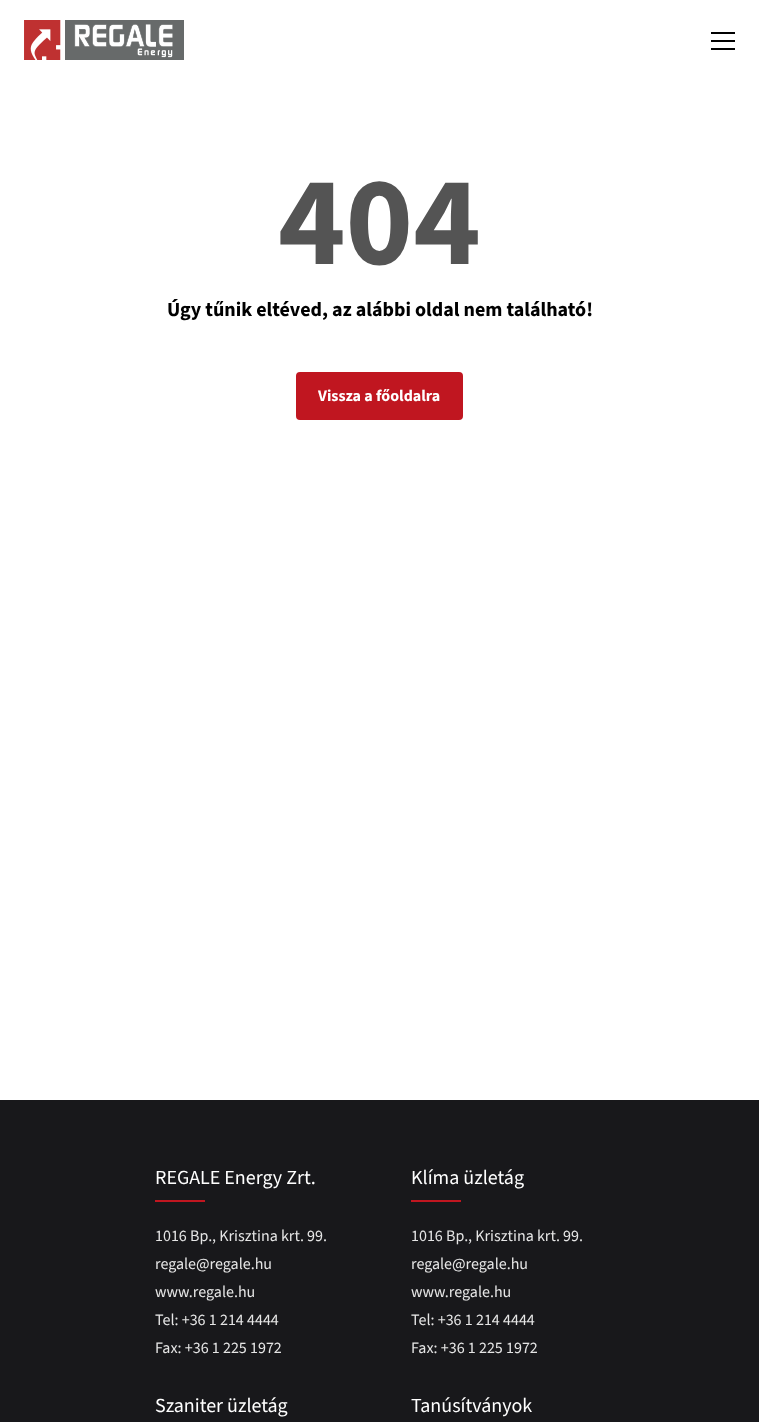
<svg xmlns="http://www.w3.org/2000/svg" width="759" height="1422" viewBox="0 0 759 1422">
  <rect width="100%" height="100%" fill="#ffffff"/>
  <image x="24" y="20" width="160" height="40" href="img1.png"/>
  <rect x="711" y="32" width="24" height="2" fill="#000000"/>
  <rect x="711" y="40" width="24" height="2" fill="#000000"/>
  <rect x="711" y="48" width="24" height="2" fill="#000000"/>
  <text x="278" y="264" font-family="'Source Sans 3'" font-size="128" font-weight="bold" fill="#545454">404</text>
  <text x="167" y="316" font-family="'Source Sans 3'" font-size="20" font-weight="bold" fill="#000000">Úgy tűnik eltéved, az alábbi oldal nem található!</text>
  <rect x="297" y="373" width="165" height="46" rx="3" fill="#c01620" stroke="#c01620" stroke-width="2"/>
  <text x="318" y="401" font-family="'Source Sans 3'" font-size="16" font-weight="bold" fill="#ffffff">Vissza a főoldalra</text>
  <rect x="0" y="1100" width="759" height="322" fill="#18181b"/>
  <text x="155" y="1184" font-family="'Source Sans 3'" font-size="20" fill="#ffffff">REGALE Energy Zrt.</text>
  <rect x="155" y="1200" width="50" height="2" fill="#c01620"/>
  <text x="155" y="1241" font-family="'Source Sans 3'" font-size="16" fill="#e5e5e5">1016 Bp., Krisztina krt. 99.</text>
  <text x="155" y="1269" font-family="'Source Sans 3'" font-size="16" fill="#e5e5e5">regale@regale.hu</text>
  <text x="155" y="1297" font-family="'Source Sans 3'" font-size="16" fill="#e5e5e5">www.regale.hu</text>
  <text x="155" y="1325" font-family="'Source Sans 3'" font-size="16" fill="#e5e5e5">Tel: +36 1 214 4444</text>
  <text x="155" y="1353" font-family="'Source Sans 3'" font-size="16" fill="#e5e5e5">Fax: +36 1 225 1972</text>
  <text x="411" y="1184" font-family="'Source Sans 3'" font-size="20" fill="#ffffff">Klíma üzletág</text>
  <rect x="411" y="1200" width="50" height="2" fill="#c01620"/>
  <text x="411" y="1241" font-family="'Source Sans 3'" font-size="16" fill="#e5e5e5">1016 Bp., Krisztina krt. 99.</text>
  <text x="411" y="1269" font-family="'Source Sans 3'" font-size="16" fill="#e5e5e5">regale@regale.hu</text>
  <text x="411" y="1297" font-family="'Source Sans 3'" font-size="16" fill="#e5e5e5">www.regale.hu</text>
  <text x="411" y="1325" font-family="'Source Sans 3'" font-size="16" fill="#e5e5e5">Tel: +36 1 214 4444</text>
  <text x="411" y="1353" font-family="'Source Sans 3'" font-size="16" fill="#e5e5e5">Fax: +36 1 225 1972</text>
  <text x="155" y="1412" font-family="'Source Sans 3'" font-size="20" fill="#ffffff">Szaniter üzletág</text>
  <text x="411" y="1412" font-family="'Source Sans 3'" font-size="20" fill="#ffffff">Tanúsítványok</text>
</svg>
